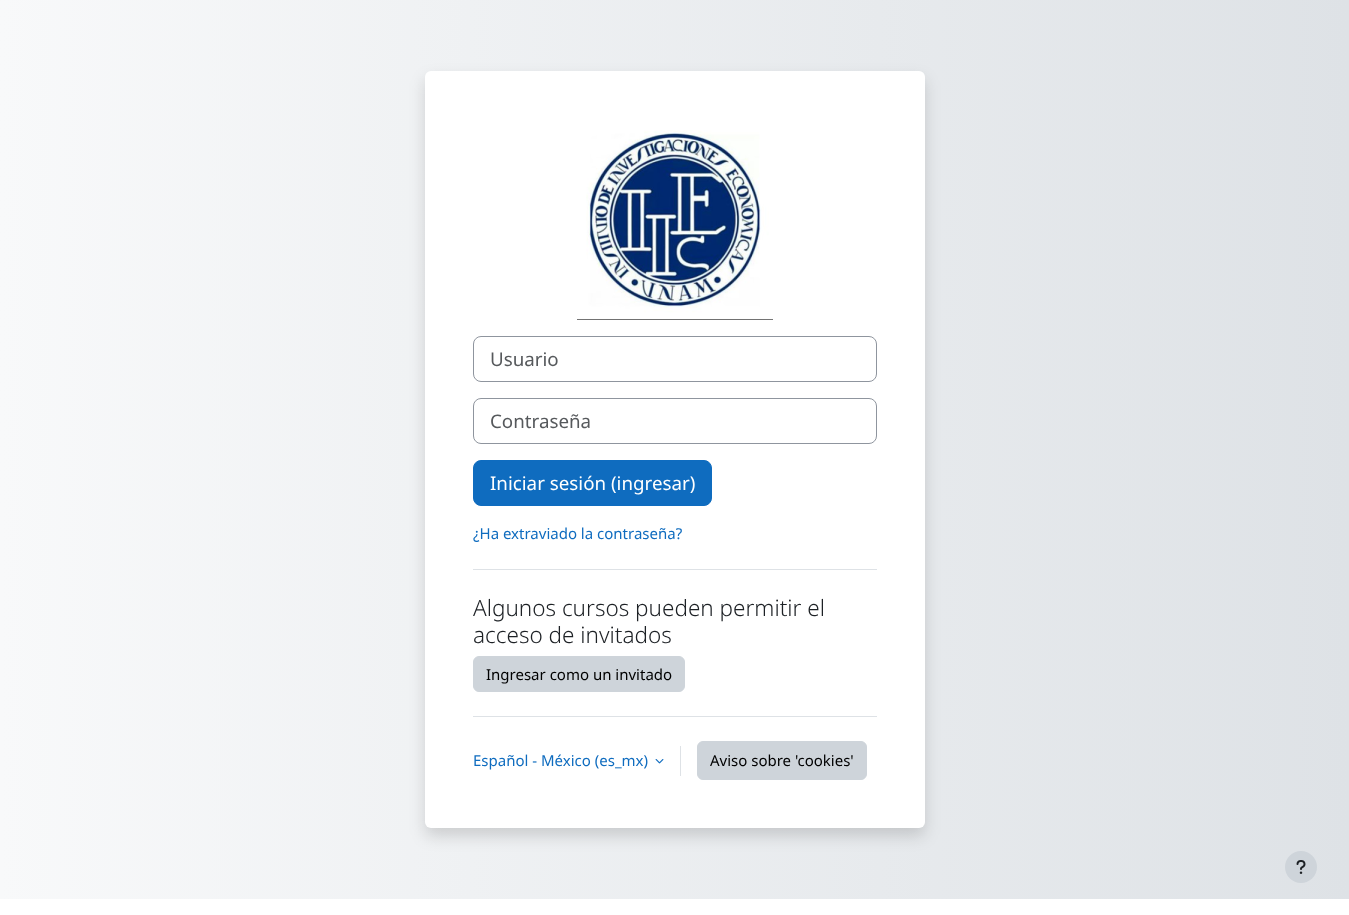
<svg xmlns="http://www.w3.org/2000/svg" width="1349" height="915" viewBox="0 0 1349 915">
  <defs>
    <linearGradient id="g1" gradientUnits="userSpaceOnUse" x1="0" y1="450" x2="1349" y2="449"><stop offset="0" stop-color="#f8f9fa"/><stop offset="1" stop-color="#dee2e6"/></linearGradient>
    <filter id="blur1" x="-50%" y="-200%" width="200%" height="500%"><feGaussianBlur stdDeviation="8"/></filter>
  </defs>
  <rect width="100%" height="100%" fill="#ffffff"/>
  <rect x="0" y="0" width="1349" height="899" fill="url(#g1)"/>
  <rect x="425" y="79" width="500" height="757" rx="6" fill="#000000" fill-opacity="0.15" filter="url(#blur1)"/>
  <rect x="425" y="71" width="500" height="757" rx="6" fill="#ffffff"/>
  <image x="577" y="130" width="196" height="190" href="img1.png"/>
  <rect x="473.5" y="336.5" width="403" height="45" rx="7.5" fill="none" stroke="#8f959e"/>
  <text x="490" y="366" font-family="Noto Sans" font-size="18.75" fill="#56595c">Usuario</text>
  <rect x="473.5" y="398.5" width="403" height="45" rx="7.5" fill="none" stroke="#8f959e"/>
  <text x="490" y="428" font-family="Noto Sans" font-size="18.75" fill="#56595c">Contraseña</text>
  <rect x="473.5" y="460.5" width="238" height="45" rx="7.5" fill="#0f6cbf" stroke="#0f6cbf"/>
  <text x="490" y="490" font-family="Noto Sans" font-size="18.75" fill="#ffffff">Iniciar sesión (ingresar)</text>
  <text x="473" y="539" font-family="Noto Sans" font-size="15" fill="#0f6cbf">¿Ha extraviado la contraseña?</text>
  <rect x="473" y="569" width="404" height="1" fill="#dee2e6"/>
  <text x="473" y="616" font-family="Noto Sans" font-size="22.5" font-weight="300" fill="#1d2125">Algunos cursos pueden permitir el</text>
  <text x="473" y="643" font-family="Noto Sans" font-size="22.5" font-weight="300" fill="#1d2125">acceso de invitados</text>
  <rect x="473.5" y="656.5" width="211" height="35" rx="5.5" fill="#ced4da" stroke="#ced4da"/>
  <text x="486" y="680" font-family="Noto Sans" font-size="15" fill="#000000">Ingresar como un invitado</text>
  <rect x="473" y="716" width="404" height="1" fill="#dee2e6"/>
  <text x="473" y="766" font-family="Noto Sans" font-size="15" fill="#0f6cbf">Español - México (es_mx)</text>
  <image x="655" y="759" width="9" height="5" href="img2.png"/>
  <rect x="680" y="746" width="1" height="30" fill="#dee2e6"/>
  <rect x="697.5" y="741.5" width="169" height="38" rx="5.5" fill="#ced4da" stroke="#ced4da"/>
  <text x="710" y="766" font-family="Noto Sans" font-size="15" fill="#000000">Aviso sobre 'cookies'</text>
  <circle cx="1301" cy="867" r="16" fill="#ced4da"/>
  <image x="1296" y="860" width="10" height="14" href="img3.png"/>
</svg>
